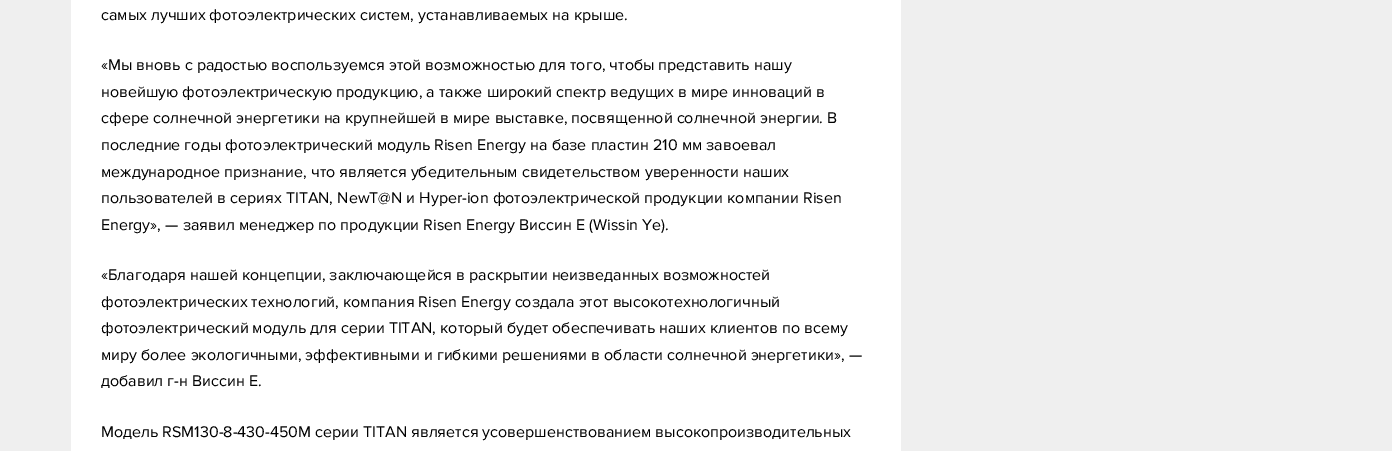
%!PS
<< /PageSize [1392 451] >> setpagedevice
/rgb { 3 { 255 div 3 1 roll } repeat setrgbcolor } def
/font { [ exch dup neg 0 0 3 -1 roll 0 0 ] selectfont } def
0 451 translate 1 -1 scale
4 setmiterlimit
239 239 239 rgb
0 0 1392 451 rectfill
255 255 255 rgb
71 0 830 451 rectfill
/ProximaNova-Regular 16 font
0 0 0 rgb
[
  [(самых лучших фотоэлектрических систем, устанавливаемых на крыше.) 101 20]
  [(«Мы вновь с радостью воспользуемся этой возможностью для того, чтобы представить нашу) 101 70]
  [(новейшую фотоэлектрическую продукцию, а также широкий спектр ведущих в мире инноваций в) 101 97]
  [(сфере солнечной энергетики на крупнейшей в мире выставке, посвященной солнечной энергии. В) 101 123]
  [(последние годы фотоэлектрический модуль Risen Energy на базе пластин 210 мм завоевал) 101 150]
  [(международное признание, что является убедительным свидетельством уверенности наших) 101 177]
  [(пользователей в сериях TITAN, NewT@N и Hyper-ion фотоэлектрической продукции компании Risen) 101 203]
  [(Energy», — заявил менеджер по продукции Risen Energy Виссин Е \(Wissin Ye\).) 101 230]
  [(«Благодаря нашей концепции, заключающейся в раскрытии неизведанных возможностей) 101 280]
  [(фотоэлектрических технологий, компания Risen Energy создала этот высокотехнологичный) 101 307]
  [(фотоэлектрический модуль для серии TITAN, который будет обеспечивать наших клиентов по всему) 101 333]
  [(миру более экологичными, эффективными и гибкими решениями в области солнечной энергетики», —) 101 360]
  [(добавил г-н Виссин Е.) 101 386]
  [(Модель RSM130-8-430-450M серии TITAN является усовершенствованием высокопроизводительных) 101 437]
] { aload pop moveto show } forall
showpage
